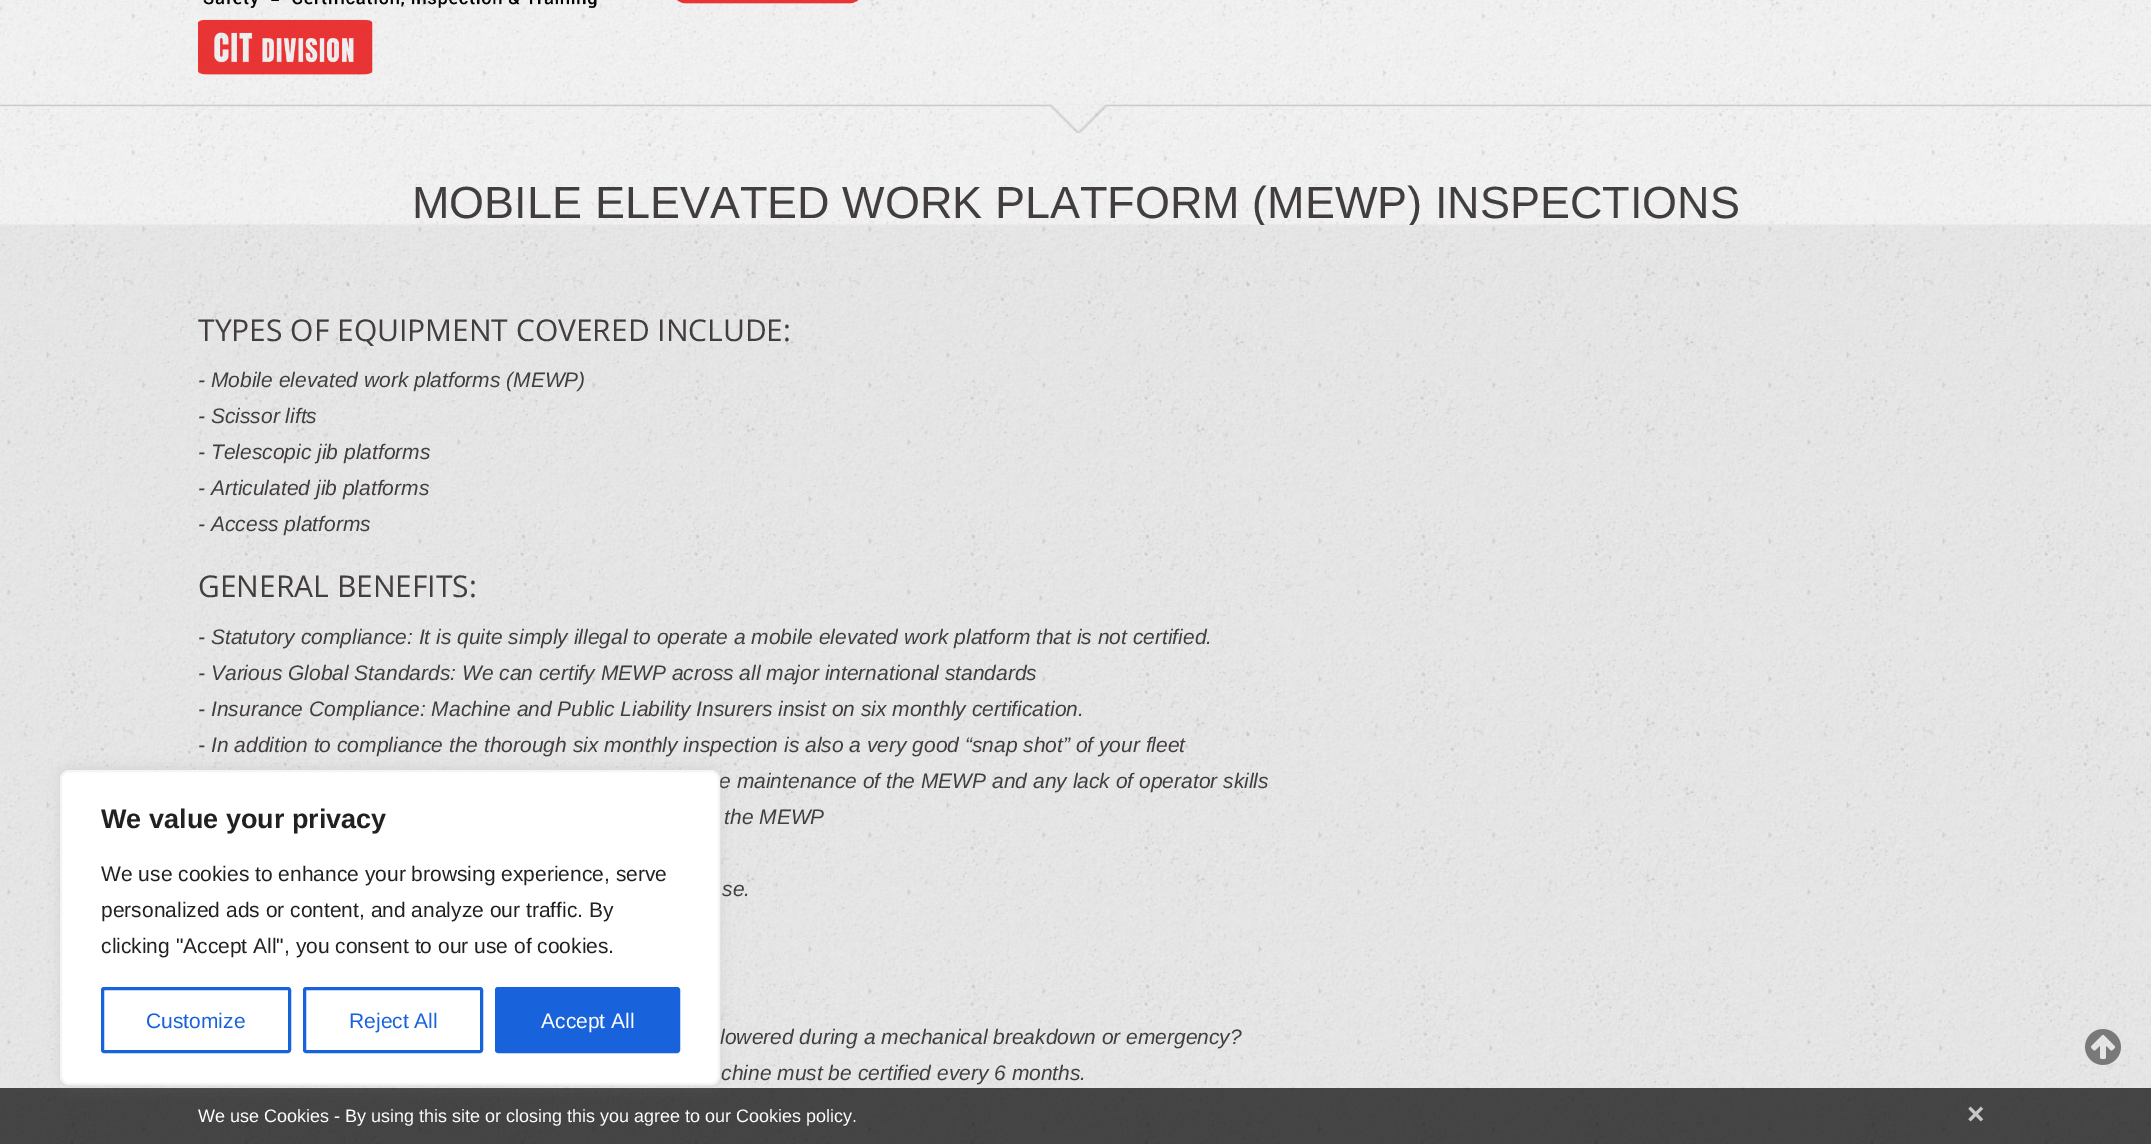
%!PS
<< /PageSize [2151 1144] /PageUsesTransparency true >> setpagedevice
/rgb { 3 { 255 div 3 1 roll } repeat setrgbcolor } def
/font { [ exch dup neg 0 0 3 -1 roll 0 0 ] selectfont } def
/alpha { dup .setfillconstantalpha .setstrokeconstantalpha } def
/roundrect { 5 dict begin { /r /h /w /y /x } { exch def } forall
  x r add y moveto x w add y 2 copy h add r arct x w add y h add x 1 index r arct
  x y h add x y r arct x y 2 copy exch w add exch r arct closepath end } def
/shadow { 12 dict begin { /a /b /q /h /w /y /x } { exch def } forall gsave /was 0 def
  9 -2 -9 { dup b mul 4 div /e exch def 1 sub .425 mul 2.718 exch exp 1 add a .99 .min exch div /now exch def
    1 1 now sub 1 was sub div sub alpha /was now def
    w h .min e 2 mul add 0 gt { x e sub y e sub w e 2 mul add h e 2 mul add
      q e add b .6 mul add w h .min 2 div e add .min 0 .max roundrect fill } if } for grestore end } def
/picture { 5 dict begin { /h /w /y /x /name } { exch def } forall
  gsave x y translate w h scale
  w h 8 [w 0 0 h 0 0] name (r) file false 3 colorimage grestore end } def
0 .pushpdf14devicefilter
0 1144 translate 1 -1 scale
4 setmiterlimit
255 255 255 rgb
0 0 2151 1144 rectfill
(img/1.rgb) 0 104 2151 1040 picture
(img/4.rgb) 0 104 2151 121 picture
(img/5.rgb) 0 104 2151 29 picture
(img/2.rgb) 0 0 2151 105 picture
(img/3.rgb) 198 0 661 75 picture
0.7 alpha
0 0 0 rgb
0 1088 2151 56 rectfill
1 alpha
172 171 171 rgb
60 768 660 315 9 7.5 0.3 shadow
(img/6.rgb) 2085 1029 36 36 picture
gsave
198 179 1755 46 rectclip
/LiberationSans-Regular 45 font
66 62 62 rgb
412 218 moveto (MOBILE ELEVATED WORK PLATFORM \(MEWP\) INSPECTIONS) show
grestore
/OpenSans-Regular 30 font
66 62 62 rgb
198 341 moveto (TYPES OF EQUIPMENT COVERED INCLUDE:) show
/LiberationSans-Italic 21 font
[
  [(- Mobile elevated work platforms \(MEWP\)) 198 387]
  [(- Scissor lifts) 198 423]
  [(- Telescopic jib platforms) 198 459]
  [(- Articulated jib platforms) 198 495]
  [(- Access platforms) 198 531]
] { aload pop moveto show } forall
/OpenSans-Regular 30 font
198 597 moveto (GENERAL BENEFITS:) show
/LiberationSans-Italic 21 font
[
  [(- Statutory compliance: It is quite simply illegal to operate a mobile elevated work platform that is not certified.) 198 644]
  [(- Various Global Standards: We can certify MEWP across all major international standards) 198 680]
  [(- Insurance Compliance: Machine and Public Liability Insurers insist on six monthly certification.) 198 716]
  [(- In addition to compliance the thorough six monthly inspection is also a very good “snap shot” of your fleet) 198 752]
  [(e maintenance of the MEWP and any lack of operator skills) 719 788]
  [(the MEWP) 724 824]
  [(se.) 722 896]
  [(lowered during a mechanical breakdown or emergency?) 720 1044]
  [(chine must be certified every 6 months.) 721 1080]
] { aload pop moveto show } forall
255 255 255 rgb
61 771 658 313 8 roundrect gsave fill grestore
244 244 244 rgb
2 setlinewidth
stroke
/LiberationSans-Bold 27 font
33 33 33 rgb
101 828 moveto (We value your privacy) show
/LiberationSans-Regular 21 font
[
  [(We use cookies to enhance your browsing experience, serve) 101 881]
  [(personalized ads or content, and analyze our traffic. By) 101 917]
  [(clicking "Accept All", you consent to our use of cookies.) 101 953]
] { aload pop moveto show } forall
24 99 220 rgb
3 setlinewidth
102.5 988.5 187 63 1.5 roundrect stroke
146 1028 moveto (Customize) show
304.5 988.5 177 63 1.5 roundrect stroke
349 1028 moveto (Reject All) show
496.5 988.5 182 63 1.5 roundrect gsave fill grestore
stroke
255 255 255 rgb
541 1028 moveto (Accept All) show
/LiberationSans-Regular 18 font
198 1122 moveto (We use Cookies - By using this site or closing this you agree to our Cookies policy.) show
/LiberationSans-Bold 30 font
199 199 199 rgb
1967 1124 moveto (×) show
.poppdf14devicefilter showpage
